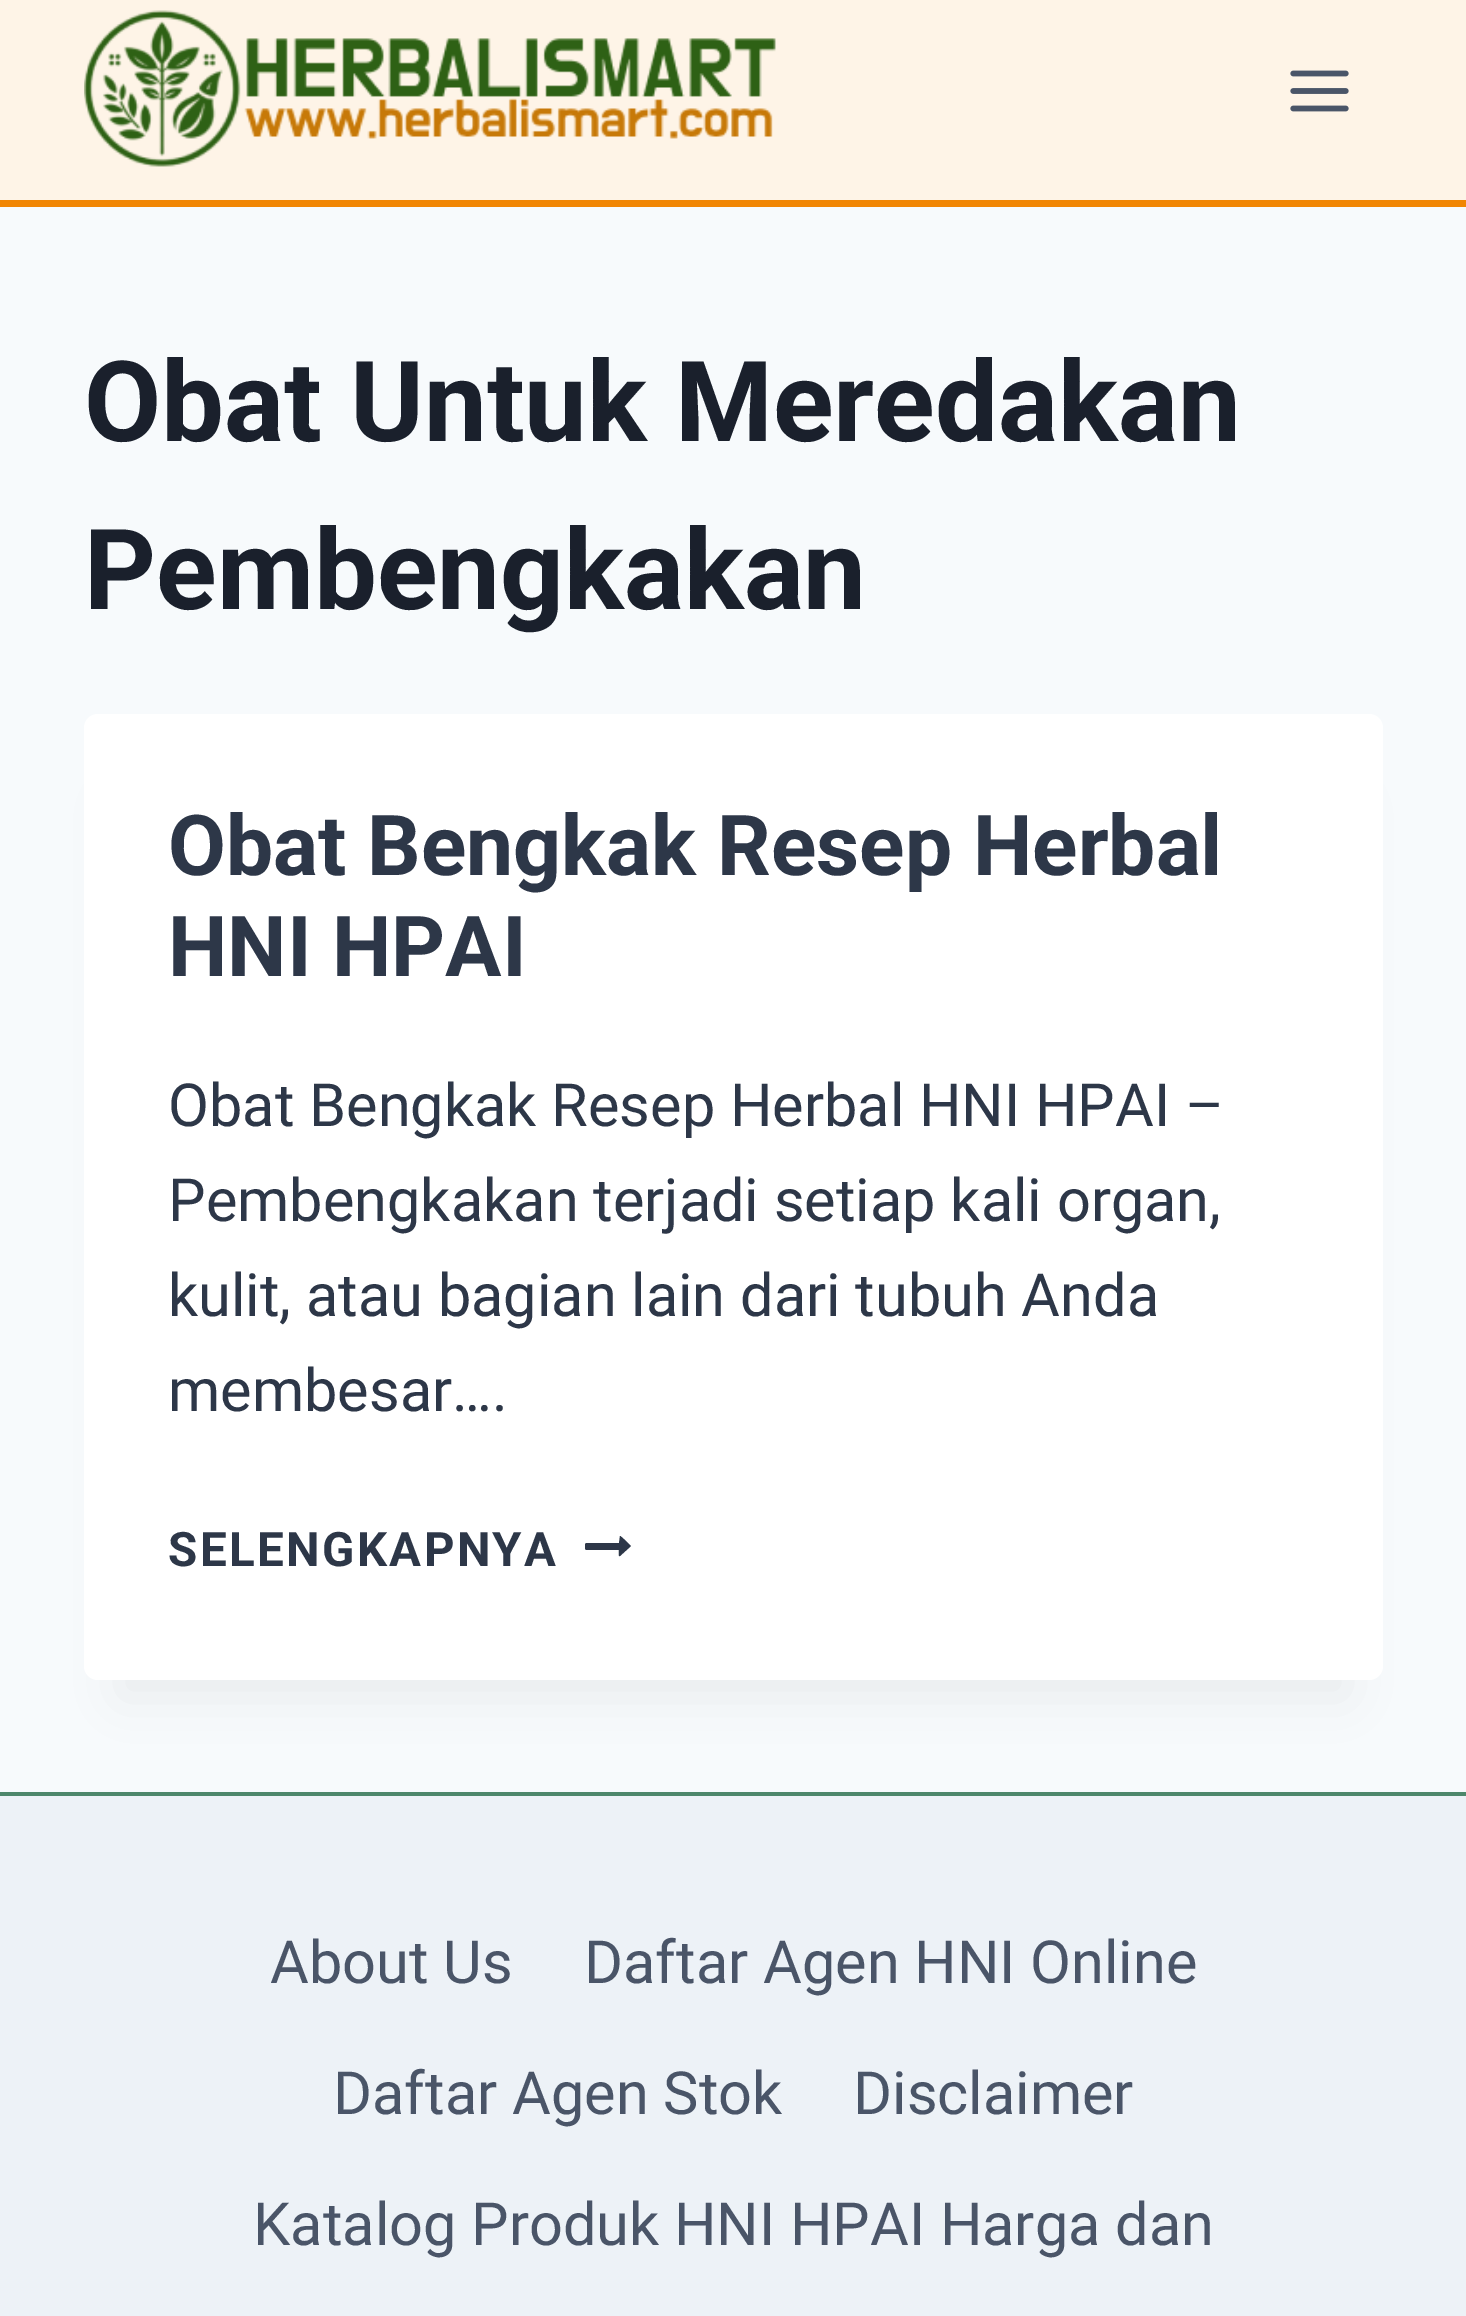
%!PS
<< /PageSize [1466 2316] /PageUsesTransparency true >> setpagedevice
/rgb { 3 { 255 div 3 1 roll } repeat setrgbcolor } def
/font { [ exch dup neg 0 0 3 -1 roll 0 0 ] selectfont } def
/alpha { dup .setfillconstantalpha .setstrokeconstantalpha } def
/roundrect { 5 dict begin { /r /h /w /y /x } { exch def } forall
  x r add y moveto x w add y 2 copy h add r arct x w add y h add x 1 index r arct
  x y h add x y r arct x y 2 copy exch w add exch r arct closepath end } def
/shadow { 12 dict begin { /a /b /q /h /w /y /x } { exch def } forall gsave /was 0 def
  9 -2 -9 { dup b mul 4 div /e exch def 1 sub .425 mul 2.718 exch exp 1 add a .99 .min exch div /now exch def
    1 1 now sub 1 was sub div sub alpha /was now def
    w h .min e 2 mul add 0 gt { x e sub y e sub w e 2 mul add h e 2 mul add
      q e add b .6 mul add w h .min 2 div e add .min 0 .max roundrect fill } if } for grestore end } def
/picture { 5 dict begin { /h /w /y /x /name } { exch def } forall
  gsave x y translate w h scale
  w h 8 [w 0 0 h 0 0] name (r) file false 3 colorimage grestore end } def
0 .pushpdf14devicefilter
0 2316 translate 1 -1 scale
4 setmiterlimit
247 250 252 rgb
0 0 1466 2316 rectfill
254 244 231 rgb
0 0 1466 200 rectfill
241 134 3 rgb
0 200 1466 7 rectfill
(img/1.rgb) 84 10 692 157 picture
(img/2.rgb) 1290 70 59 42 picture
0 0 0 rgb
119 802 1229 896 0 26 0.05 shadow
255 255 255 rgb
84 714 1299 966 14 roundrect fill
45 55 72 rgb
631 1546 moveto 620 1556 lineto 618 1557 619 1551 619 1550 curveto 586 1550 lineto 585 1549 lineto 585 1544 lineto 586 1543 lineto 619 1543 lineto 620 1536 lineto 621 1536 631 1546 631 1546 curveto closepath fill
237 242 247 rgb
0 1796 1466 520 rectfill
77 135 107 rgb
0 1792 1466 4 rectfill
/Roboto-Bold 112 font
26 32 44 rgb
84 441 moveto (Obat Untuk Meredakan) show
84 609 moveto (Pembengkakan) show
/Roboto-Bold 84 font
45 55 72 rgb
168 875 moveto (Obat Bengkak Resep Herbal) show
168 976 moveto (HNI HPAI) show
/Roboto-Regular 59.5 font
[
  [(Obat Bengkak Resep Herbal HNI HPAI –) 168 1126]
  [(Pembengkakan terjadi setiap kali organ,) 168 1221]
  [(kulit, atau bagian lain dari tubuh Anda) 168 1316]
  [(membesar….) 168 1411]
] { aload pop moveto show } forall
/Roboto-Bold 47.5 font
168 1566 moveto 2.4 0 (SELENGKAPNYA) ashow
/Roboto-Regular 59.5 font
74 85 104 rgb
[
  [(About Us) 270 1983]
  [(Daftar Agen HNI Online) 584 1983]
  [(Daftar Agen Stok) 333 2114]
  [(Disclaimer) 853 2114]
  [(Katalog Produk HNI HPAI Harga dan) 253 2245]
] { aload pop moveto show } forall
.poppdf14devicefilter showpage
